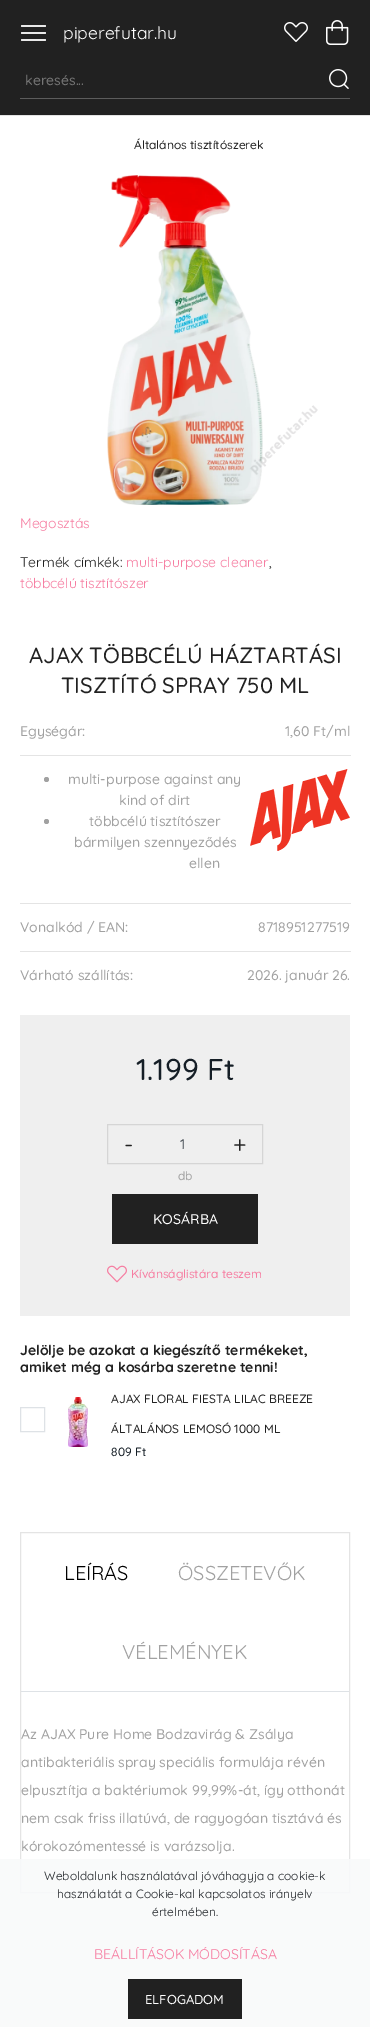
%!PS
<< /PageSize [370 2027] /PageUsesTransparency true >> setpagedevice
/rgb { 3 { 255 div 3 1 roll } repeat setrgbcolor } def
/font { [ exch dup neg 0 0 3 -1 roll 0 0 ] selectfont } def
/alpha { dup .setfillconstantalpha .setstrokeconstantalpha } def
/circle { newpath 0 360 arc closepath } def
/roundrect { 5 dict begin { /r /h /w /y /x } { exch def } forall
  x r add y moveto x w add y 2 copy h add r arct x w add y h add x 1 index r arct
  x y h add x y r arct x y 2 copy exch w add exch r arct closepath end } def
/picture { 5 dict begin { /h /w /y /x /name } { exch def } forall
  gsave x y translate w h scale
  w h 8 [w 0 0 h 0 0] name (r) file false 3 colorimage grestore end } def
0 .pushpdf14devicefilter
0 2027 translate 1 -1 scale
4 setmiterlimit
255 255 255 rgb
0 0 370 2027 rectfill
33 33 33 rgb
0 0 370 115 rectfill
233 233 233 rgb
21 25 25 2 1 roundrect fill
21 32 25 2 1 roundrect fill
21 39 25 2 1 roundrect fill
(img/1.rgb) 284 22 24 20 picture
(img/2.rgb) 326 20 23 25 picture
92 92 92 rgb
20 98 330 1 rectfill
(img/3.rgb) 329 69 20 20 picture
227 227 227 rgb
0 115 370 1 rectfill
(img/4.rgb) 107 175 211 330 picture
228 228 228 rgb
20 755 331 1 rectfill
161 161 161 rgb
46.5 779.5 2.5 circle fill
(img/5.rgb) 250 769 100 82 picture
46.5 821.5 2.5 circle fill
[
  [20 903 331 1 228 228 228]
  [20 951 331 1 228 228 228]
  [20 1015 330 301 239 239 239]
] { aload pop rgb rectfill } forall
213 213 213 rgb
107.5 1124.5 155 39 rectstroke
33 33 33 rgb
112 1194 146 50 rectfill
(img/6.rgb) 107 1265 20 18 picture
222 226 230 rgb
20.5 1407.5 24 24 rectstroke
(img/7.rgb) 68 1397 20 50 picture
228 228 228 rgb
20.5 1532.5 329 360 rectstroke
[
  [21 1691 328 1 222 226 230]
] { aload pop rgb rectfill } forall
0.9 alpha
[
  [0 1859 370 168 248 249 250]
] { aload pop rgb rectfill } forall
1 alpha
[
  [128 1979 114 40 33 33 33]
] { aload pop rgb rectfill } forall
/Quicksand-Regular 17.5 font
255 255 255 rgb
63 39 moveto (piperefutar.hu) show
/Quicksand-Medium 14 font
118 118 118 rgb
25 85 moveto (keresés...) show
/Quicksand-Medium 12 font
33 33 33 rgb
134 149 moveto (Általános tisztítószerek) show
/Quicksand-Regular 14 font
246 125 161 rgb
20 528 moveto (Megosztás) show
33 33 33 rgb
20 567 moveto (Termék címkék:) show
246 125 161 rgb
126 567 moveto (multi-purpose cleaner) show
33 33 33 rgb
269 567 moveto (,) show
246 125 161 rgb
20 588 moveto (többcélú tisztítószer) show
/Quicksand-Medium 22 font
33 33 33 rgb
29 663 moveto (AJAX TÖBBCÉLÚ HÁZTARTÁSI) show
61 693 moveto (TISZTÍTÓ SPRAY 750 ML) show
/Quicksand-Medium 14 font
161 161 161 rgb
[
  [(Egységár:) 20 736]
  [(1,60 Ft/ml) 285 736]
  [(multi-purpose against any) 68 784]
  [(kind of dirt) 119 805]
  [(többcélú tisztítószer) 89 826]
  [(bármilyen szennyeződés) 74 847]
  [(ellen) 189 868]
  [(Vonalkód / EAN:) 20 932]
  [(8718951277519) 258 932]
  [(Várható szállítás:) 20 980]
  [(2026. január 26.) 247 980]
] { aload pop moveto show } forall
/Quicksand-Medium 30 font
21 30 38 rgb
136 1080 moveto (1.199 Ft) show
/Quicksand-Regular 24 font
33 33 33 rgb
124 1153 moveto (-) show
/Quicksand-Medium 14 font
73 80 87 rgb
180 1149 moveto (1) show
/Quicksand-Regular 24 font
33 33 33 rgb
233 1153 moveto (+) show
/Quicksand-Medium 12 font
161 161 161 rgb
178 1180 moveto (db) show
/Quicksand-Medium 14 font
255 255 255 rgb
153 1224 moveto (KOSÁRBA) show
/Quicksand-Medium 12 font
246 125 161 rgb
131 1278 moveto (Kívánságlistára teszem) show
/Quicksand-Bold 14 font
33 33 33 rgb
20 1355 moveto (Jelölje be azokat a kiegészítő termékeket,) show
20 1372 moveto (amiket még a kosárba szeretne tenni!) show
/Quicksand-Medium 12 font
111 1403 moveto (AJAX FLORAL FIESTA LILAC BREEZE) show
111 1433 moveto (ÁLTALÁNOS LEMOSÓ 1000 ML) show
21 30 38 rgb
111 1456 moveto (809 Ft) show
/Quicksand-Regular 20 font
0 0 0 rgb
64 1580 moveto (LEÍRÁS) show
161 161 161 rgb
178 1580 moveto (ÖSSZETEVŐK) show
122 1659 moveto (VÉLEMÉNYEK) show
/Quicksand-Medium 14 font
[
  [(Az AJAX Pure Home Bodzavirág & Zsálya) 21 1739]
  [(antibakteriális spray speciális formulája révén) 21 1767]
  [(elpusztítja a baktériumok 99,99%-át, így otthonát) 21 1795]
  [(nem csak friss illatúvá, de ragyogóan tisztává és) 21 1823]
  [(kórokozómentessé is varázsolja.) 21 1851]
] { aload pop moveto show } forall
/Quicksand-Regular 12 font
33 37 41 rgb
[
  [(Weboldalunk használatával jóváhagyja a cookie-k) 44 1880]
  [(használatát a Cookie-kal kapcsolatos irányelv) 57 1898]
  [(értelmében.) 152 1916]
] { aload pop moveto show } forall
/Quicksand-Regular 14 font
246 125 161 rgb
94 1959 moveto (BEÁLLÍTÁSOK MÓDOSÍTÁSA) show
/Quicksand-Medium 13 font
255 255 255 rgb
145 2004 moveto (ELFOGADOM) show
.poppdf14devicefilter showpage
